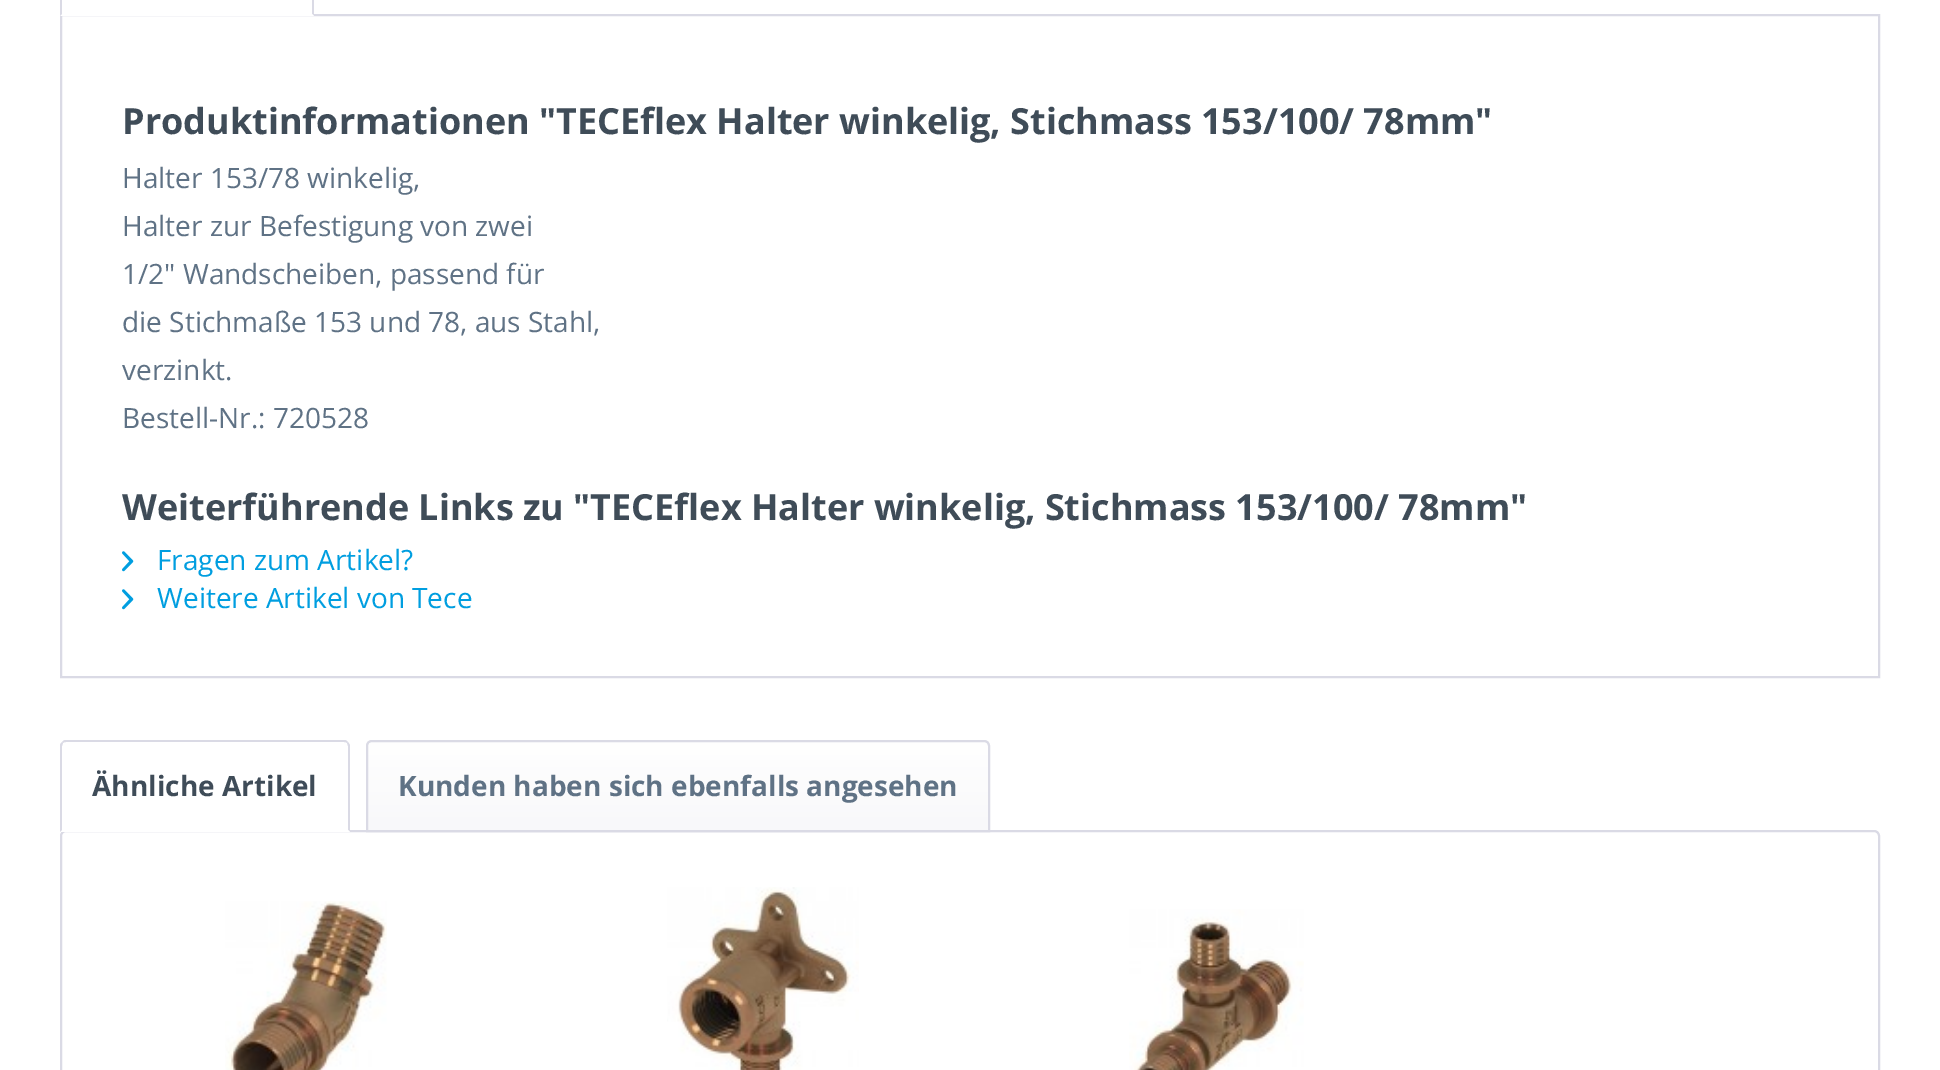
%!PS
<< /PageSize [1940 1070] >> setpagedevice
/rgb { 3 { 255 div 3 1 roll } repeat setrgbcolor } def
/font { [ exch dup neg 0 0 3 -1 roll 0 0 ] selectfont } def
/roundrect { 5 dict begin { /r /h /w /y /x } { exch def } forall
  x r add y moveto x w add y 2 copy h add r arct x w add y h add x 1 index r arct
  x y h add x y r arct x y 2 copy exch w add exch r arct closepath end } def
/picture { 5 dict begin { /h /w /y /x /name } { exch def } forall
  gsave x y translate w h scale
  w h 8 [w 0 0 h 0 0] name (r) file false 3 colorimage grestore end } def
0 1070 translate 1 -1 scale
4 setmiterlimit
255 255 255 rgb
0 0 1940 1070 rectfill
218 218 229 rgb
2 setlinewidth
61 15 1818 662 rectstroke
255 255 255 rgb
60 14 254 2 rectfill
218 218 229 rgb
314 16 moveto 314 -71 lineto 312 -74 lineto 311 -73 lineto 312 -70 lineto 312 14 lineto closepath fill
255 255 255 rgb
314 16 moveto 312 14 lineto 62 14 lineto 60 16 lineto closepath fill
218 218 229 rgb
60 16 moveto 62 14 lineto 62 -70 lineto 63 -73 lineto 62 -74 lineto 61 -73 60 -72 60 -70 curveto closepath fill
(img/1.rgb) 122 551 12 21 picture
(img/1.rgb) 122 589 12 21 picture
61 831 1818 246 5 roundrect stroke
255 255 255 rgb
66 740 moveto 344 740 lineto 347.5 740 350 742.5 350 746 curveto 350 832 lineto 60 832 lineto 60 746 lineto 60 742.5 62.5 740 66 740 curveto closepath fill
218 218 229 rgb
66 740 moveto 64 740 63 741 62 742 curveto 63 743 lineto 64 742 65 742 66 742 curveto 344 742 lineto 345 742 346 742 347 743 curveto 348 742 lineto 347 741 346 740 344 740 curveto closepath fill
350 832 moveto 350 745 lineto 348 742 lineto 347 743 lineto 348 746 lineto 348 830 lineto closepath fill
255 255 255 rgb
350 832 moveto 348 830 lineto 62 830 lineto 60 832 lineto closepath fill
218 218 229 rgb
60 832 moveto 62 830 lineto 62 746 lineto 63 743 lineto 62 742 lineto 61 743 60 744 60 746 curveto closepath fill
gsave 372 742 moveto 984 742 lineto 986 742 988 744 988 746 curveto 988 830 lineto 368 830 lineto 368 746 lineto 368 744 370 742 372 742 curveto closepath clip newpath
<< /ShadingType 2 /ColorSpace /DeviceRGB /Coords [678 742 678 830] /Extend [true true] /Function << /FunctionType 2 /Domain [0 1] /C0 [1 1 1] /C1 [0.973 0.973 0.98] /N 1 >> >> shfill grestore
372 741 moveto 984 741 lineto 987 741 989 743 989 746 curveto 989 831 lineto 367 831 lineto 367 746 lineto 367 743 369 741 372 741 curveto closepath stroke
(img/2.rgb) 225 901 162 169 picture
(img/3.rgb) 667 887 192 183 picture
(img/4.rgb) 1129 909 175 161 picture
/OpenSans-Bold 36 font
63 76 88 rgb
122 134 moveto (Produktinformationen "TECEflex Halter winkelig, Stichmass 153/100/ 78mm") show
/OpenSans-Regular 28 font
95 114 133 rgb
[
  [(Halter 153/78 winkelig,) 122 188]
  [(Halter zur Befestigung von zwei) 122 236]
  [(1/2" Wandscheiben, passend für) 122 284]
  [(die Stichmaße 153 und 78, aus Stahl,) 122 332]
  [(verzinkt.) 122 380]
  [(Bestell-Nr.: 720528) 122 428]
] { aload pop moveto show } forall
/OpenSans-Bold 36 font
63 76 88 rgb
122 520 moveto (Weiterführende Links zu "TECEflex Halter winkelig, Stichmass 153/100/ 78mm") show
/OpenSans-Regular 28 font
0 158 224 rgb
157 570 moveto (Fragen zum Artikel?) show
157 608 moveto (Weitere Artikel von Tece) show
/OpenSans-Bold 28 font
63 76 88 rgb
92 796 moveto (Ähnliche Artikel) show
95 114 133 rgb
398 796 moveto (Kunden haben sich ebenfalls angesehen) show
showpage
